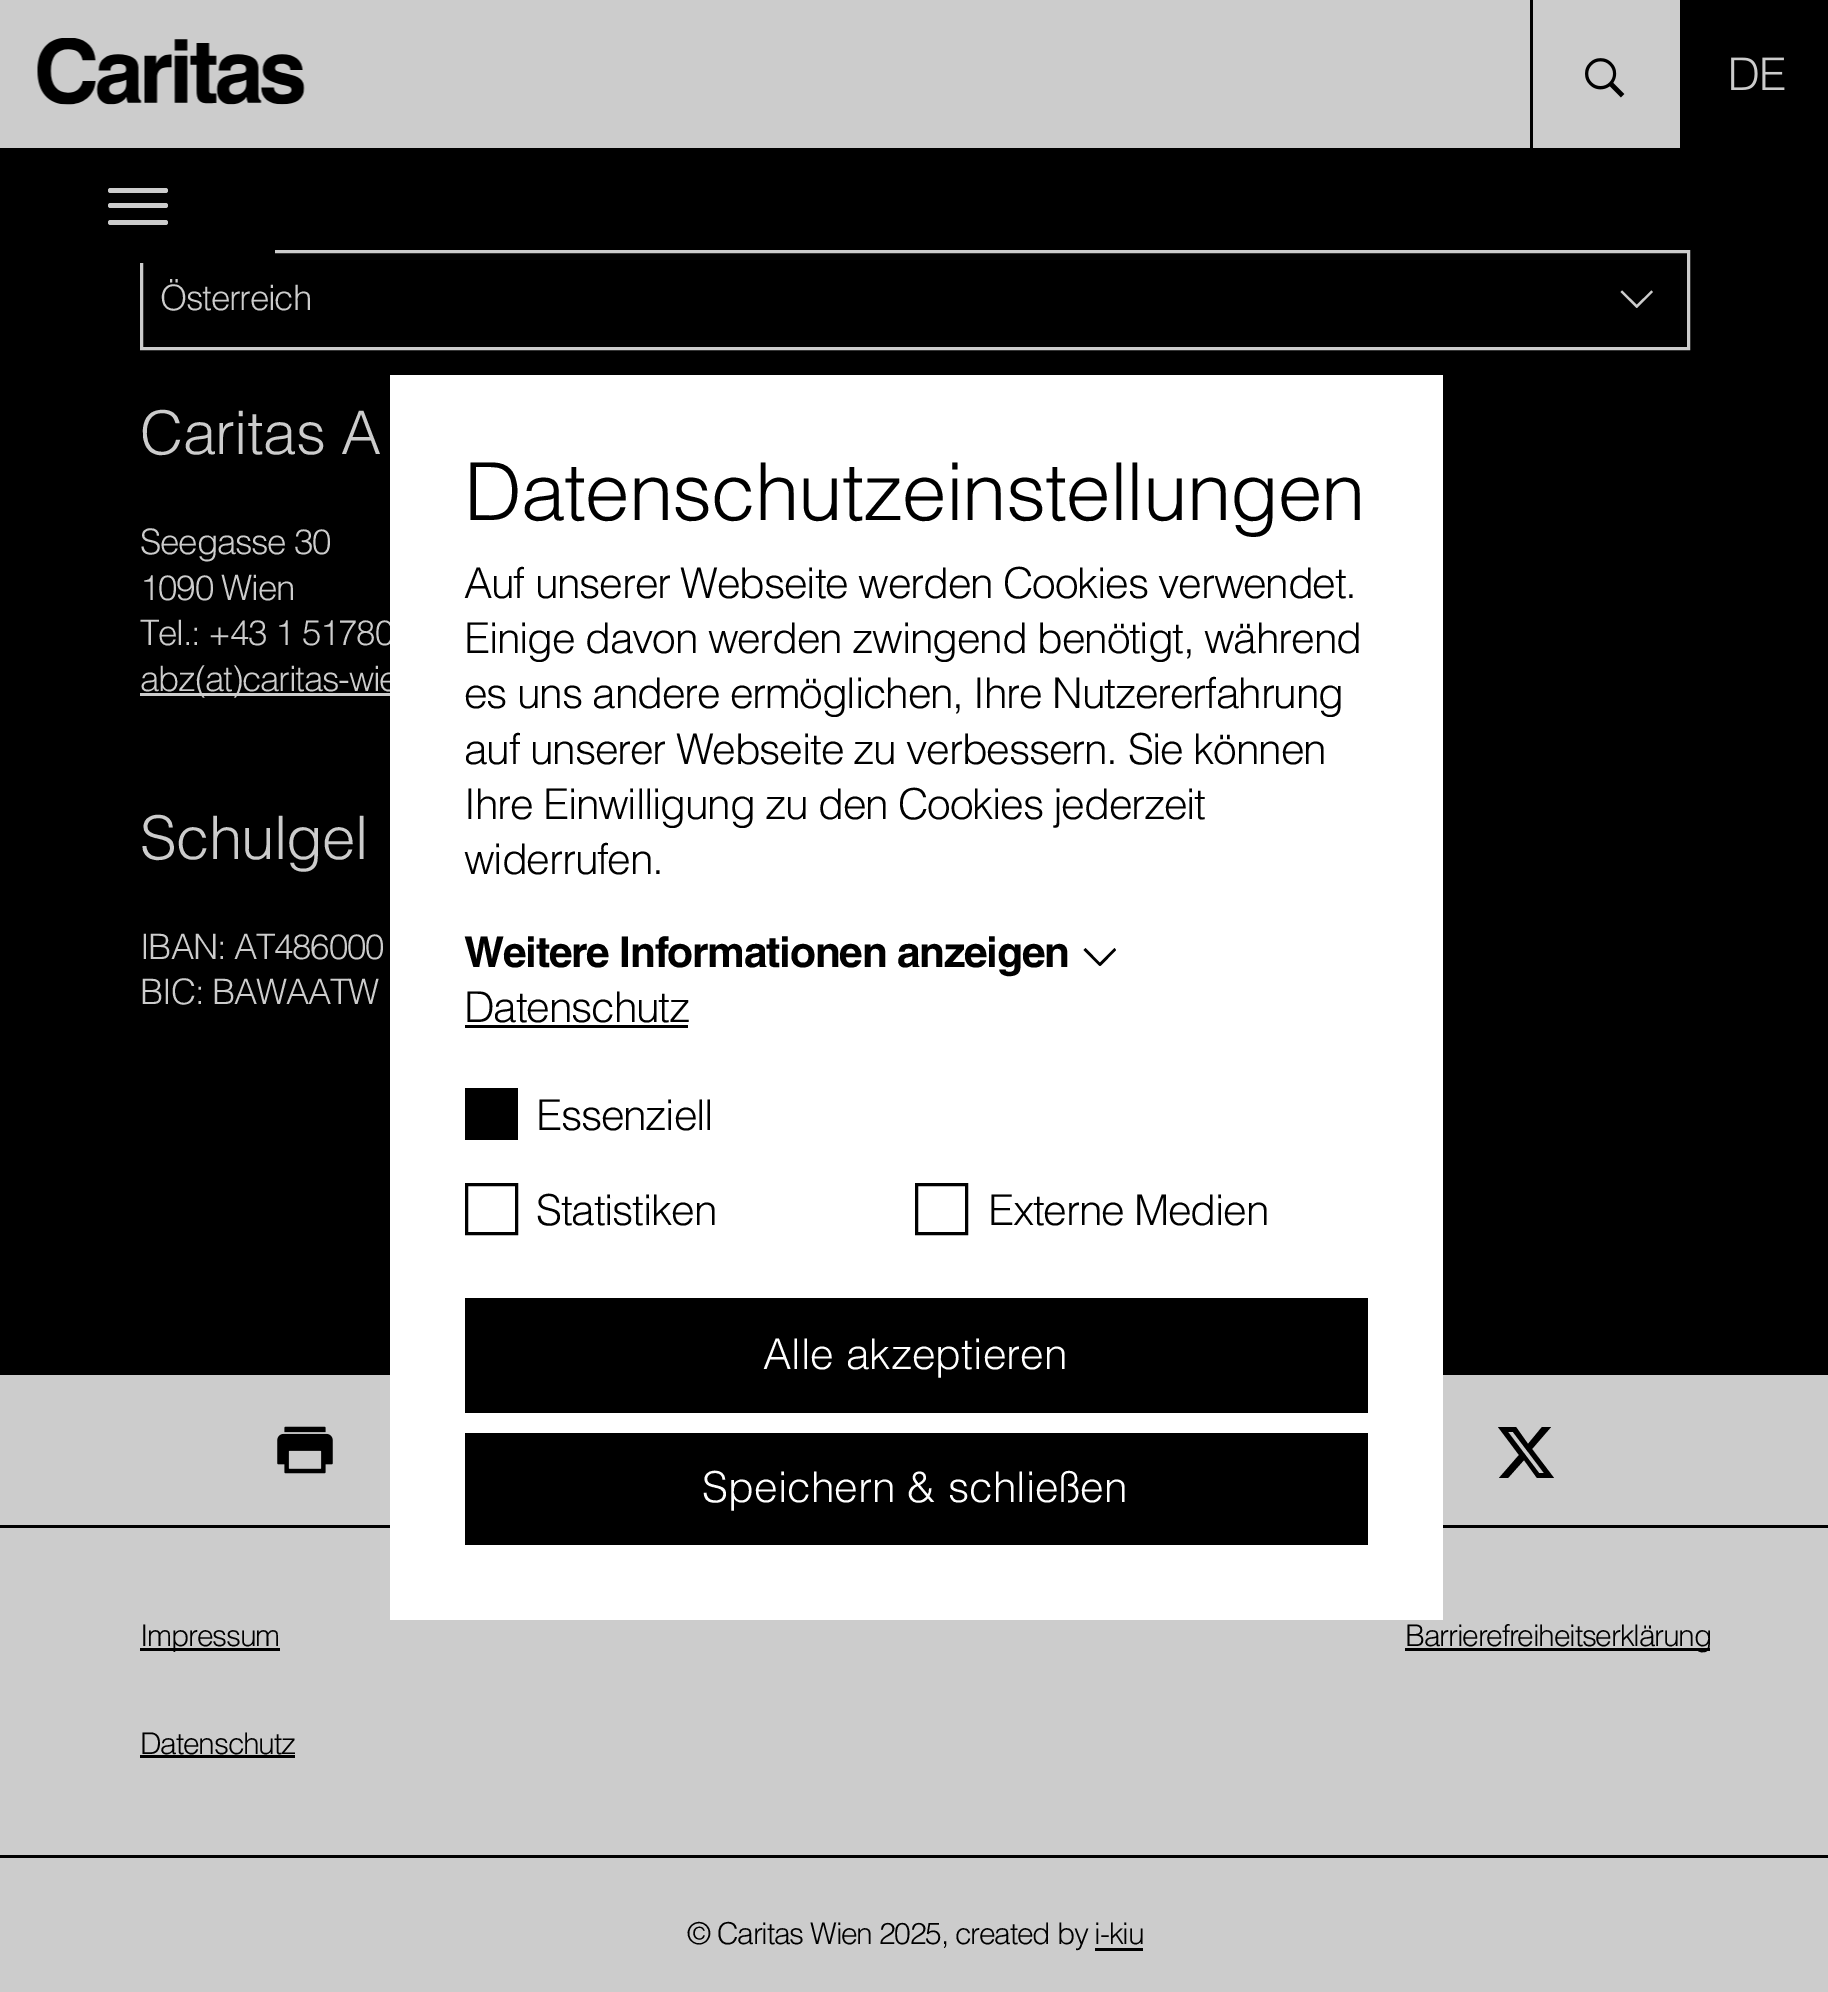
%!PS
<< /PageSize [1828 1992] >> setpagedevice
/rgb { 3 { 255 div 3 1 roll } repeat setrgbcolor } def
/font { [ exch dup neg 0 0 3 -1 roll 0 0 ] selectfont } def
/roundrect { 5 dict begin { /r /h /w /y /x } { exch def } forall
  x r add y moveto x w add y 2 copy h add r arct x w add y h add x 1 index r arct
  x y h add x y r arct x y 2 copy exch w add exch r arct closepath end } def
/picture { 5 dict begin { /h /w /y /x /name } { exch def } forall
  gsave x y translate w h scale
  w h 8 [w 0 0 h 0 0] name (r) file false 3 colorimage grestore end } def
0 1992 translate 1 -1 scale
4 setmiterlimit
204 204 204 rgb
0 0 1828 1992 rectfill
(img/1.rgb) 37 38 268 67 picture
0 0 0 rgb
1530 0 3 148 rectfill
(img/2.rgb) 1585 58 40 40 picture
1680 0 148 148 rectfill
(img/3.rgb) 1731 57 54 33 picture
0 148 1828 1227 rectfill
204 204 204 rgb
3 setlinewidth
141.5 251.5 1547 97 rectstroke
0 0 0 rgb
140 250 135 13 rectfill
204 204 204 rgb
108 188 60 5 2.5 roundrect fill
108 203 60 5 2.5 roundrect fill
108 220 60 5 2.5 roundrect fill
1622 290.5 moveto 1638 306 lineto 1636.5 308 lineto 1620.5 292 lineto closepath fill
1635.5 306 moveto 1651.5 290.5 lineto 1653 292 lineto 1637 308 lineto closepath fill
140 693 250 3 rectfill
0 0 0 rgb
0 1525 1828 3 rectfill
(img/4.rgb) 277 1426 56 48 picture
1542 1427 moveto 1551 1427 lineto 1532 1449 lineto 1554 1478 lineto 1537 1478 lineto 1524 1460 lineto 1508 1478 lineto 1499 1478 lineto 1519 1455 lineto 1498 1427 lineto 1516 1427 lineto 1528 1444 lineto closepath 1539 1473 moveto 1544 1473 lineto 1513 1432 lineto 1508 1432 lineto closepath fill
[
  [140 1648 140 3 0 0 0]
  [1405 1648 305 3 0 0 0]
  [140 1755 155 3 0 0 0]
  [0 1855 1828 3 0 0 0]
  [1095 1948 48 3 0 0 0]
] { aload pop rgb rectfill } forall
/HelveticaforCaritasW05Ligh-Light 35 font
204 204 204 rgb
160 310 moveto -1.25 0 (Österreich) ashow
/HelveticaforCaritasW05Ligh-Light 60 font
140 454 moveto -0.75 0 (Caritas A) ashow
/HelveticaforCaritasW05Ligh-Light 35 font
140 554 moveto -1.25 0 (Seegasse 30) ashow
140 600 moveto -1.25 0 (1090 Wien) ashow
140 645 moveto -1.25 0 (Tel.: +43 1 51780) ashow
140 691 moveto -1.25 0 (abz\(at\)caritas-wie) ashow
/HelveticaforCaritasW05Ligh-Light 60 font
140 859 moveto -0.75 0 (Schulgel) ashow
/HelveticaforCaritasW05Ligh-Light 35 font
140 959 moveto -1.25 0 (IBAN: AT486000) ashow
140 1004 moveto -1.25 0 (BIC: BAWAATW) ashow
/HelveticaforCaritasW05Ligh-Light 30 font
0 0 0 rgb
140 1646 moveto -1.25 0 (Impressum) ashow
1405 1646 moveto -1.25 0 (Barrierefreiheitserklärung) ashow
140 1754 moveto -1.25 0 (Datenschutz) ashow
687 1944 moveto -1.25 0 (© Caritas Wien 2025, created by i-kiu) ashow
255 255 255 rgb
390 375 1053 1245 rectfill
/HelveticaforCaritasW05Ligh-Light 80 font
0 0 0 rgb
464 520 moveto -1 0 (Datenschutzeinstellungen) ashow
/HelveticaforCaritasW05Ligh-Light 42.5 font
464 598 moveto -1.25 0 (Auf unserer Webseite werden Cookies verwendet.) ashow
464 653 moveto -1.25 0 (Einige davon werden zwingend benötigt, während) ashow
464 708 moveto -1.25 0 (es uns andere ermöglichen, Ihre Nutzererfahrung) ashow
464 764 moveto -1.25 0 (auf unserer Webseite zu verbessern. Sie können) ashow
464 819 moveto -1.25 0 (Ihre Einwilligung zu den Cookies jederzeit) ashow
464 874 moveto -1.25 0 (widerrufen.) ashow
/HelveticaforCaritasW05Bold-Bold 42.5 font
464 967 moveto -1.25 0 (Weitere Informationen anzeigen) ashow
1085.5 948 moveto 1101 964 lineto 1099.5 966 lineto 1083.5 950 lineto closepath fill
1098.5 964 moveto 1114.5 948 lineto 1116 950 lineto 1100.5 966 lineto closepath fill
/HelveticaforCaritasW05Ligh-Light 42.5 font
464 1022 moveto -1.25 0 (Datenschutz) ashow
465 1025 223 3 rectfill
465 1088 53 52 rectfill
536 1130 moveto -1.25 0 (Essenziell) ashow
466.5 1184.5 50 49 rectstroke
536 1225 moveto -1.25 0 (Statistiken) ashow
916.5 1184.5 50 49 rectstroke
988 1225 moveto -1.25 0 (Externe Medien) ashow
465 1298 903 115 rectfill
255 255 255 rgb
763 1369 moveto (Alle akzeptieren) show
0 0 0 rgb
465 1433 903 112 rectfill
255 255 255 rgb
702 1502 moveto (Speichern & schließen) show
showpage
